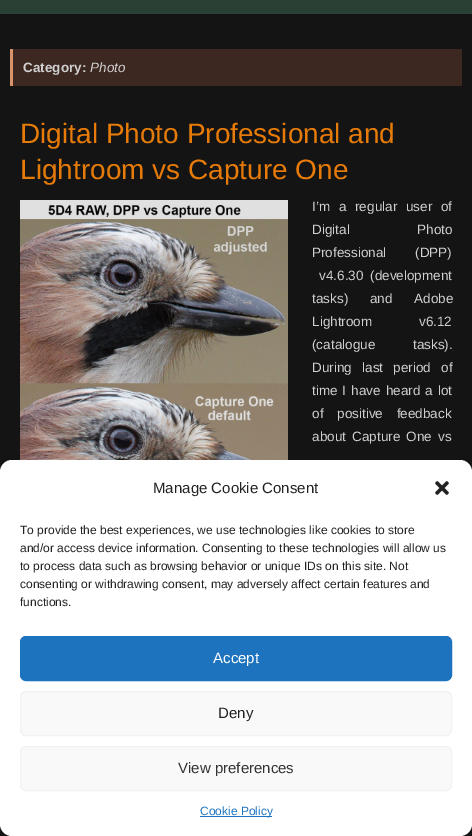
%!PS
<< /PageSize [472 836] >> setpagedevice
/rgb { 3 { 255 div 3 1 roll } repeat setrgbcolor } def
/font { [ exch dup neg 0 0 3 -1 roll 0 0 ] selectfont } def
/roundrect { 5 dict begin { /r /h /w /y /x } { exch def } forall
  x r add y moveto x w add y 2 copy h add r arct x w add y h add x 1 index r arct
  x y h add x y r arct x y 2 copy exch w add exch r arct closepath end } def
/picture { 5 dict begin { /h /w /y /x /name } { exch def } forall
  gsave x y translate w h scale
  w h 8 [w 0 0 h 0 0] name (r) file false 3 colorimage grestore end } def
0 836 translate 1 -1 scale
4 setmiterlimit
20 20 20 rgb
0 0 472 836 rectfill
[
  [0 0 472 14 42 64 53]
  [13 49 449 37 60 40 32]
  [10 49 3 37 216 147 107]
] { aload pop rgb rectfill } forall
(img/1.rgb) 20 200 268 260 picture
255 255 255 rgb
0 460 472 376 12 roundrect fill
(img/2.rgb) 435 481 14 14 picture
30 115 190 rgb
20.5 636.5 431 44 5.5 roundrect gsave fill grestore
stroke
249 249 249 rgb
20.5 691.5 431 44 5.5 roundrect gsave fill grestore
242 242 242 rgb
stroke
249 249 249 rgb
20.5 746.5 431 44 5.5 roundrect gsave fill grestore
242 242 242 rgb
stroke
30 115 190 rgb
200 816 72 1 rectfill
/LiberationSans-Bold 13.5 font
208 208 208 rgb
23 72 moveto (Category:) show
/LiberationSans-Italic 13.5 font
90 72 moveto (Photo) show
/LiberationSans-Regular 28 font
230 123 9 rgb
20 143 moveto (Digital Photo Professional and) show
20 179 moveto (Lightroom vs Capture One) show
/LiberationSans-Regular 13.5 font
208 208 208 rgb
312 211 moveto 5 0 32 (I’m a regular user of) widthshow
312 234 moveto 64 0 32 (Digital Photo) widthshow
312 257 moveto 25 0 32 (Professional \(DPP\)) widthshow
319 280 moveto 3 0 32 (v4.6.30 \(development) widthshow
312 303 moveto 18 0 32 (tasks\) and Adobe) widthshow
312 326 moveto 43 0 32 (Lightroom v6.12) widthshow
312 349 moveto 34 0 32 (\(catalogue tasks\).) widthshow
312 372 moveto 6.5 0 32 (During last period of) widthshow
312 395 moveto 1.25 0 32 (time I have heard a lot) widthshow
312 418 moveto 10 0 32 (of positive feedback) widthshow
312 441 moveto 2.5 0 32 (about Capture One vs) widthshow
/LiberationSans-Regular 15 font
34 34 34 rgb
153 493 moveto (Manage Cookie Consent) show
/LiberationSans-Regular 12 font
[
  [(To provide the best experiences, we use technologies like cookies to store) 20 534]
  [(and/or access device information. Consenting to these technologies will allow us) 20 552]
  [(to process data such as browsing behavior or unique IDs on this site. Not) 20 570]
  [(consenting or withdrawing consent, may adversely affect certain features and) 20 588]
  [(functions.) 20 606]
] { aload pop moveto show } forall
/LiberationSans-Regular 15 font
255 255 255 rgb
213 663 moveto (Accept) show
34 34 34 rgb
218 718 moveto (Deny) show
51 51 51 rgb
178 773 moveto (View preferences) show
/LiberationSans-Regular 12 font
30 115 190 rgb
200 815 moveto (Cookie Policy) show
showpage
